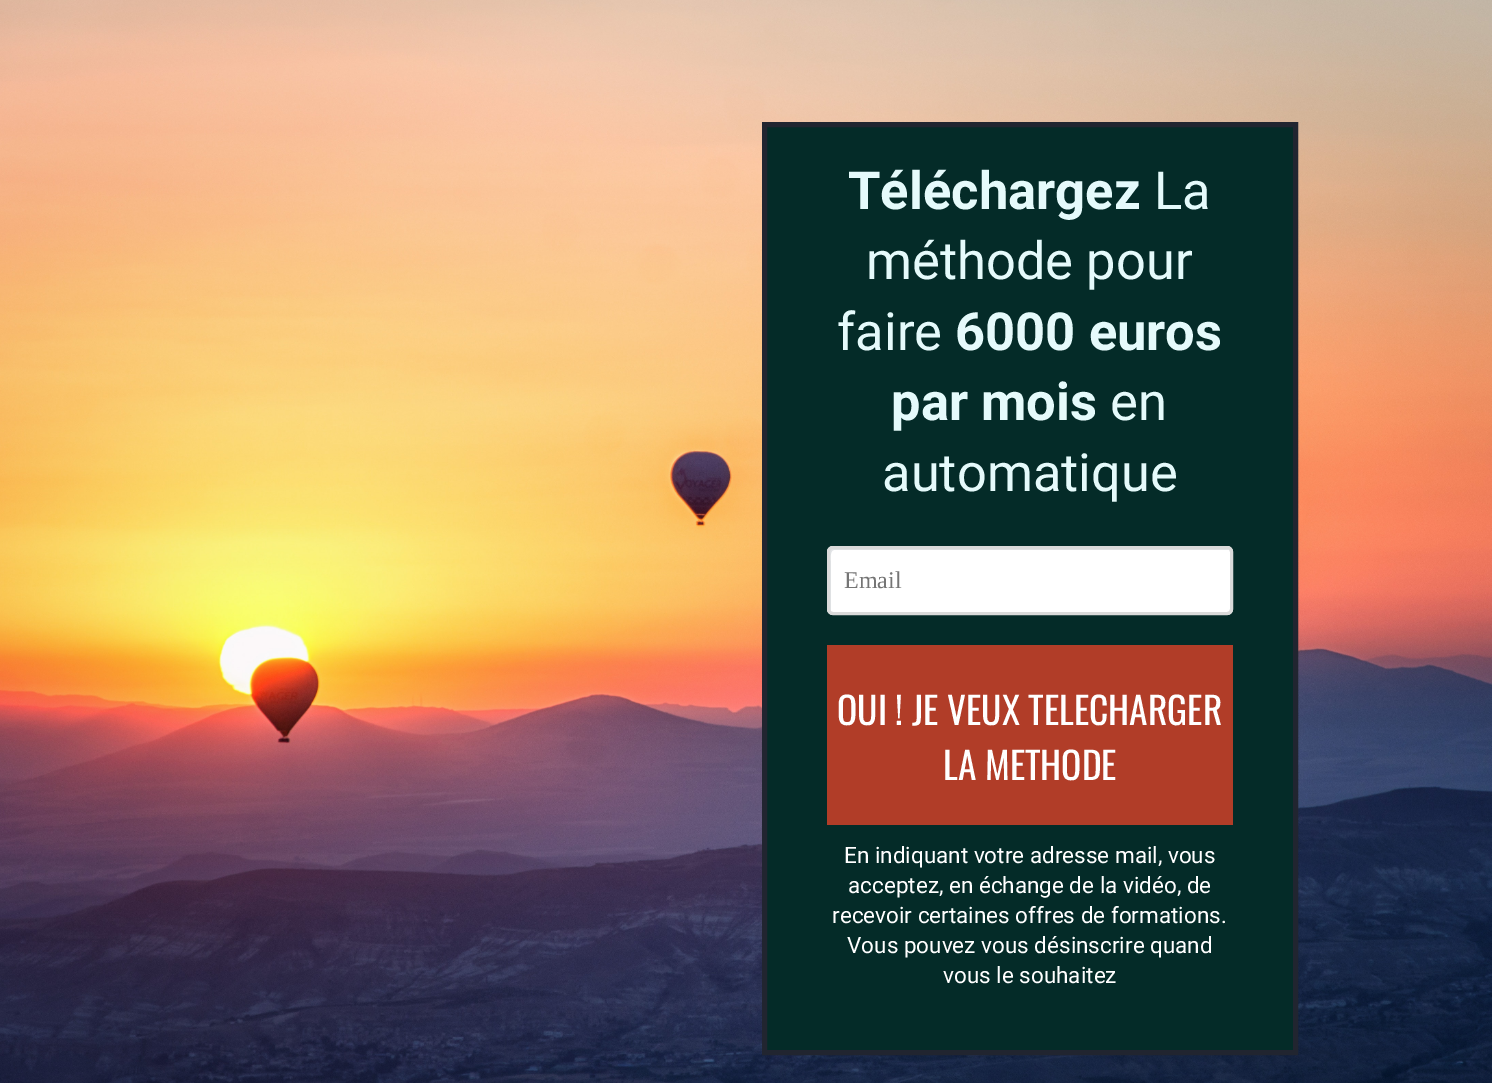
%!PS
<< /PageSize [1492 1083] >> setpagedevice
/rgb { 3 { 255 div 3 1 roll } repeat setrgbcolor } def
/font { [ exch dup neg 0 0 3 -1 roll 0 0 ] selectfont } def
/roundrect { 5 dict begin { /r /h /w /y /x } { exch def } forall
  x r add y moveto x w add y 2 copy h add r arct x w add y h add x 1 index r arct
  x y h add x y r arct x y 2 copy exch w add exch r arct closepath end } def
/picture { 5 dict begin { /h /w /y /x /name } { exch def } forall
  gsave x y translate w h scale
  w h 8 [w 0 0 h 0 0] name (r) file false 3 colorimage grestore end } def
0 1083 translate 1 -1 scale
4 setmiterlimit
255 255 255 rgb
0 0 1492 1083 rectfill
(img/1.rgb) 0 0 1492 1083 picture
4 43 40 rgb
764.5 124.5 moveto 1295.5 124.5 lineto 1295.5 1052.5 lineto 764.5 1052.5 lineto closepath gsave fill grestore
33 37 48 rgb
5 setlinewidth
stroke
255 255 255 rgb
827 546 406 69 6 roundrect fill
226 228 231 rgb
834 550 moveto 1228 550 lineto 1230 550 lineto 1229 550 1228 549 1227 549 curveto 833 549 lineto 831 549 830 550 830 552 curveto 830 609 lineto 830 610 830 611 831 611 curveto 831 563 lineto 831 563 829 550 834 550 curveto closepath fill
218 218 218 rgb
3 setlinewidth
828.5 547.5 403 66 4.5 roundrect stroke
177 61 40 rgb
827 645 406 180 rectfill
/Roboto-Bold 52.5 font
229 250 251 rgb
848 209 moveto (Téléchargez) show
/Roboto-Regular 52.5 font
[
  [(La) 1154 209]
  [(méthode pour) 866 279]
  [(faire) 837 350]
] { aload pop moveto show } forall
/Roboto-Bold 52.5 font
955 350 moveto (6000 euros) show
891 420 moveto (par mois) show
/Roboto-Regular 52.5 font
1110 420 moveto (en) show
882 491 moveto (automatique) show
/LiberationSerif-Regular 24 font
117 117 117 rgb
844 588 moveto (Email) show
/Oswald-Regular 37.5 font
255 255 255 rgb
837 725 moveto (OUI ! JE VEUX TELECHARGER) show
943 780 moveto (LA METHODE) show
/Roboto-Regular 22.5 font
[
  [(En indiquant votre adresse mail, vous) 844 863]
  [(acceptez, en échange de la vidéo, de) 848 893]
  [(recevoir certaines offres de formations.) 832 923]
  [(Vous pouvez vous désinscrire quand) 847 953]
  [(vous le souhaitez) 943 983]
] { aload pop moveto show } forall
showpage
